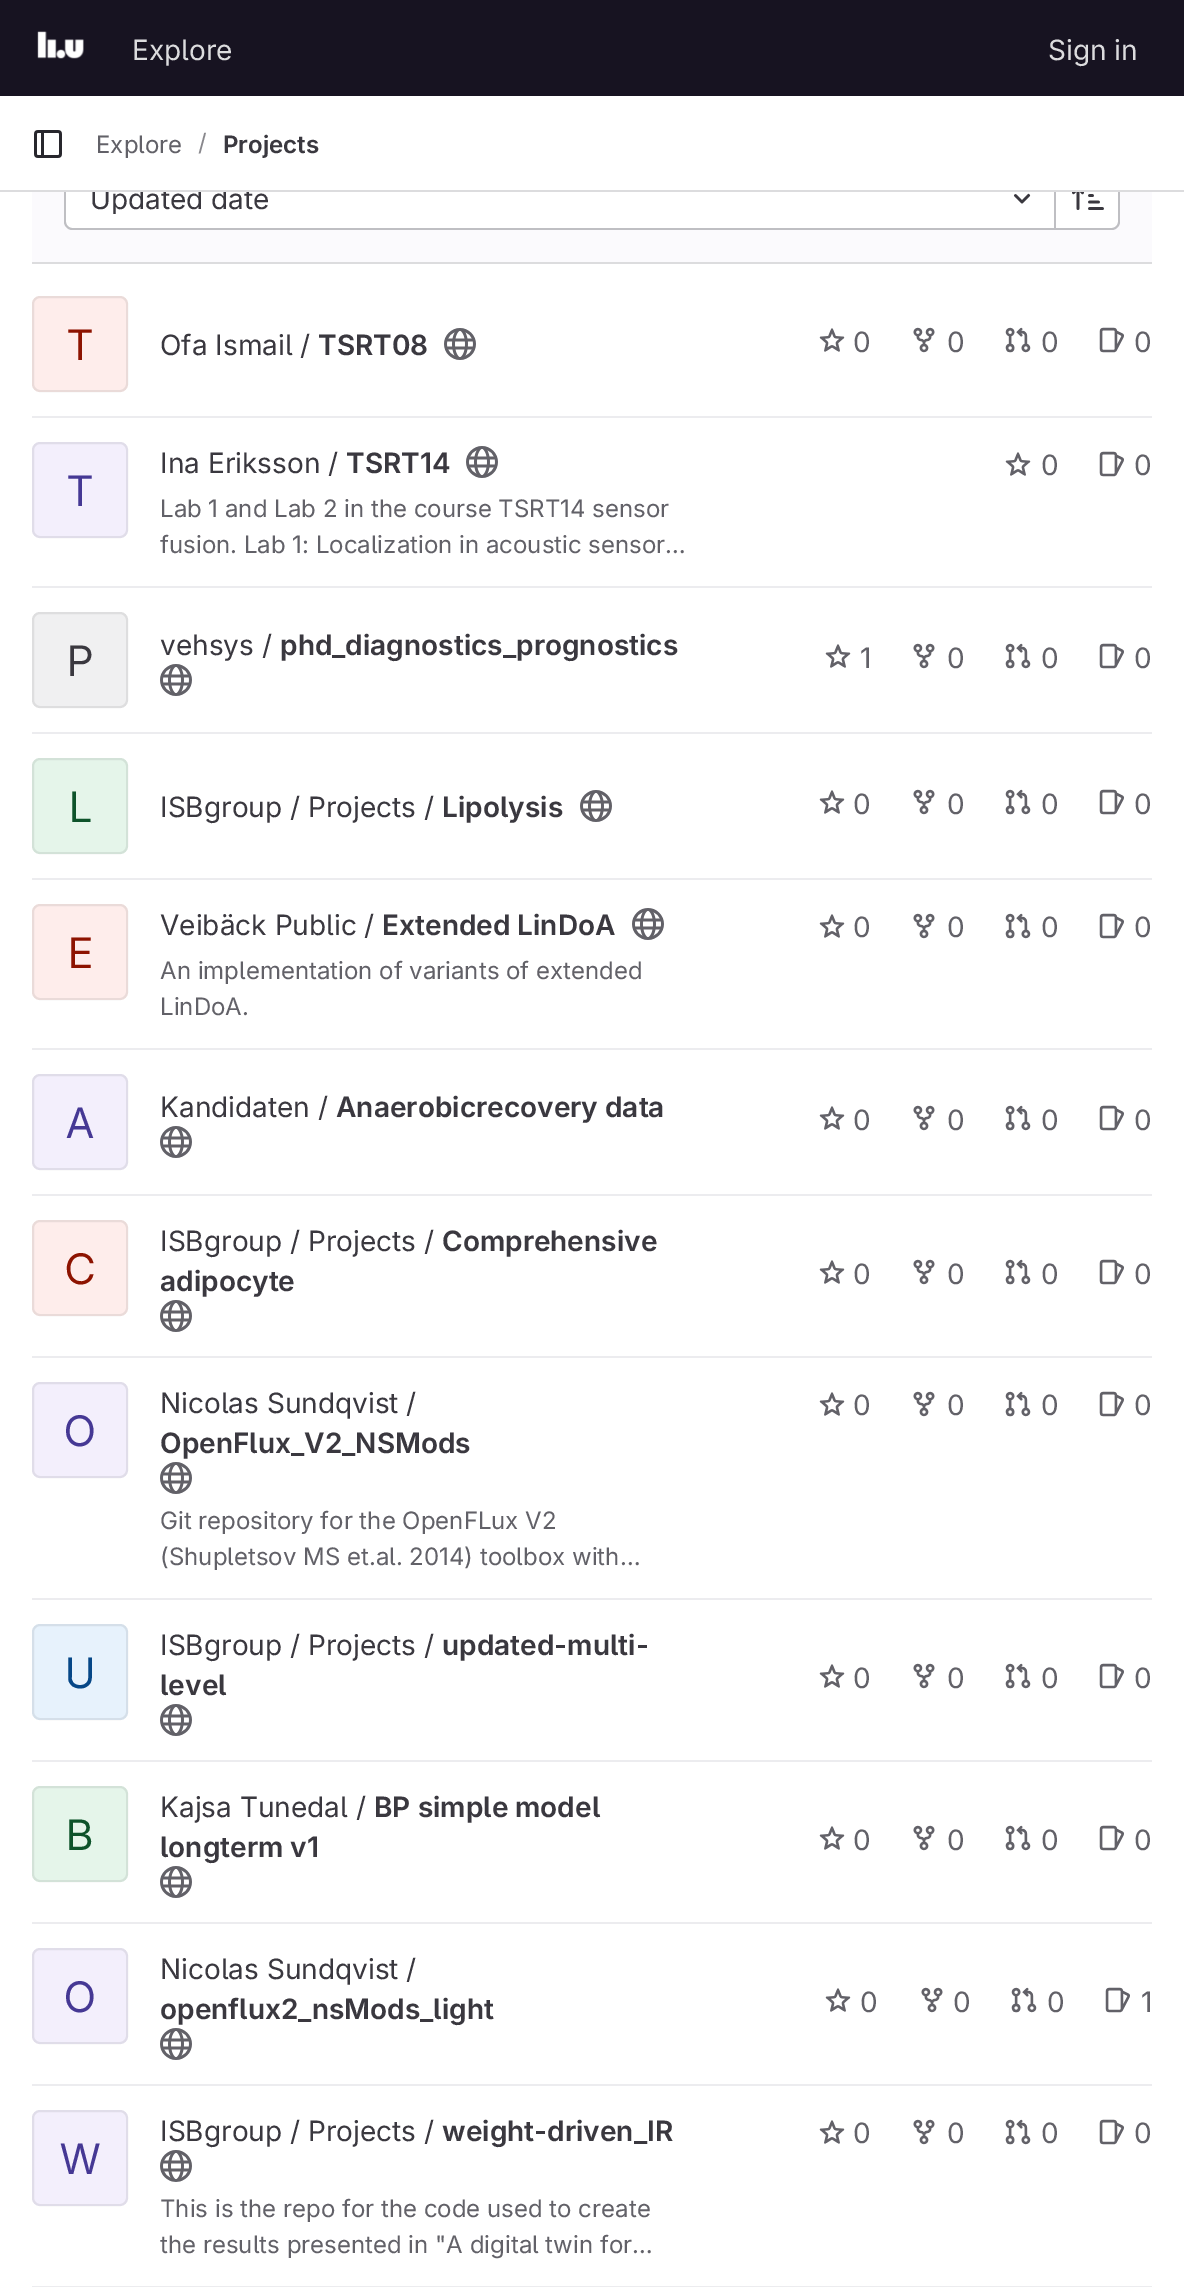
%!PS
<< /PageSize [1184 2287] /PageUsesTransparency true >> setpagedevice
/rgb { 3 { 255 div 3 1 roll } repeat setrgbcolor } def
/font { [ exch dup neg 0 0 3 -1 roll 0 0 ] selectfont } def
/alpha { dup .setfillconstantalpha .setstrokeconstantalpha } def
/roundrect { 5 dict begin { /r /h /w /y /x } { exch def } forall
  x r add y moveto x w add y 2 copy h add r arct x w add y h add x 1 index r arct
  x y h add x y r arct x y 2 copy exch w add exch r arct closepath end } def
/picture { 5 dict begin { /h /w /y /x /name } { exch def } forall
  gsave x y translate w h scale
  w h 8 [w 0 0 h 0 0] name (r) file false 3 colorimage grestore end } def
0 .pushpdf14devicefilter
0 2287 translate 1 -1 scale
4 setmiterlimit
255 255 255 rgb
0 0 1184 2287 rectfill
23 19 33 rgb
0 0 1184 96 rectfill
(img/1.rgb) 37 31 47 28 picture
(img/2.rgb) 34 130 28 28 picture
251 250 253 rgb
32 192 1120 70 rectfill
220 220 222 rgb
32 262 1120 2 rectfill
255 255 255 rgb
72 168 moveto 1054 168 lineto 1054 228 lineto 72 228 lineto 68.5 228 66 225.5 66 222 curveto 66 174 lineto 66 170.5 68.5 168 72 168 curveto closepath fill
191 191 195 rgb
72 166 moveto 1054 166 lineto 1054 230 lineto 72 230 lineto 68 230 64 226 64 222 curveto 64 174 lineto 64 170 68 166 72 166 curveto closepath 72 168 moveto 1054 168 lineto 1054 228 lineto 72 228 lineto 69 228 66 225 66 222 curveto 66 174 lineto 66 171 69 168 72 168 curveto closepath eofill
(img/3.rgb) 1013 193 18 11 picture
255 255 255 rgb
1056 168 moveto 1112 168 lineto 1115.5 168 1118 170.5 1118 174 curveto 1118 222 lineto 1118 225.5 1115.5 228 1112 228 curveto 1056 228 lineto closepath fill
191 191 195 rgb
1056 166 moveto 1112 166 lineto 1116 166 1120 170 1120 174 curveto 1120 222 lineto 1120 226 1116 230 1112 230 curveto 1056 230 lineto closepath 1056 168 moveto 1112 168 lineto 1115 168 1118 171 1118 174 curveto 1118 222 lineto 1118 225 1115 228 1112 228 curveto 1056 228 lineto closepath eofill
1054 192 2 38 rectfill
(img/4.rgb) 1072 192 32 18 picture
236 236 239 rgb
32 416 1120 2 rectfill
254 237 235 rgb
32 296 96 96 8 roundrect fill
0.08 alpha
5 5 6 rgb
2 setlinewidth
33 297 94 94 7 roundrect stroke
1 alpha
(img/5.rgb) 444 328 32 32 picture
(img/6.rgb) 819 328 26 24 picture
(img/7.rgb) 913 327 22 26 picture
(img/8.rgb) 1005 327 26 26 picture
(img/9.rgb) 1099 327 25 26 picture
236 236 239 rgb
32 586 1120 2 rectfill
(img/5.rgb) 466 446 32 32 picture
(img/10.rgb) 1005 452 26 24 picture
(img/9.rgb) 1099 451 25 26 picture
243 239 252 rgb
32 442 96 96 8 roundrect fill
0.08 alpha
5 5 6 rgb
33 443 94 94 7 roundrect stroke
1 alpha
236 236 239 rgb
32 732 1120 2 rectfill
240 240 241 rgb
32 612 96 96 8 roundrect fill
0.08 alpha
5 5 6 rgb
33 613 94 94 7 roundrect stroke
1 alpha
(img/5.rgb) 160 664 32 32 picture
(img/11.rgb) 825 644 26 24 picture
(img/7.rgb) 913 643 22 26 picture
(img/8.rgb) 1005 643 26 26 picture
(img/12.rgb) 1099 643 25 26 picture
236 236 239 rgb
32 878 1120 2 rectfill
229 245 234 rgb
32 758 96 96 8 roundrect fill
0.08 alpha
5 5 6 rgb
33 759 94 94 7 roundrect stroke
1 alpha
(img/5.rgb) 580 790 32 32 picture
(img/6.rgb) 819 790 26 24 picture
(img/7.rgb) 913 789 22 26 picture
(img/8.rgb) 1005 789 26 26 picture
(img/9.rgb) 1099 789 25 26 picture
236 236 239 rgb
32 1048 1120 2 rectfill
(img/13.rgb) 632 908 32 32 picture
(img/6.rgb) 819 914 26 24 picture
(img/7.rgb) 913 913 22 26 picture
(img/14.rgb) 1005 913 26 26 picture
(img/9.rgb) 1099 913 25 26 picture
254 237 235 rgb
32 904 96 96 8 roundrect fill
0.08 alpha
5 5 6 rgb
33 905 94 94 7 roundrect stroke
1 alpha
236 236 239 rgb
32 1194 1120 2 rectfill
243 239 252 rgb
32 1074 96 96 8 roundrect fill
0.08 alpha
5 5 6 rgb
33 1075 94 94 7 roundrect stroke
1 alpha
(img/5.rgb) 160 1126 32 32 picture
(img/6.rgb) 819 1106 26 24 picture
(img/15.rgb) 913 1105 22 26 picture
(img/8.rgb) 1005 1105 26 26 picture
(img/9.rgb) 1099 1105 25 26 picture
236 236 239 rgb
32 1356 1120 2 rectfill
254 237 235 rgb
32 1220 96 96 8 roundrect fill
0.08 alpha
5 5 6 rgb
33 1221 94 94 7 roundrect stroke
1 alpha
(img/5.rgb) 160 1300 32 32 picture
(img/6.rgb) 819 1260 26 24 picture
(img/16.rgb) 913 1259 22 26 picture
(img/17.rgb) 1005 1259 26 26 picture
(img/9.rgb) 1099 1259 25 26 picture
236 236 239 rgb
32 1598 1120 2 rectfill
(img/5.rgb) 160 1462 32 32 picture
(img/6.rgb) 819 1392 26 24 picture
(img/7.rgb) 913 1391 22 26 picture
(img/8.rgb) 1005 1391 26 26 picture
(img/9.rgb) 1099 1391 25 26 picture
243 239 252 rgb
32 1382 96 96 8 roundrect fill
0.08 alpha
5 5 6 rgb
33 1383 94 94 7 roundrect stroke
1 alpha
236 236 239 rgb
32 1760 1120 2 rectfill
231 242 252 rgb
32 1624 96 96 8 roundrect fill
0.08 alpha
5 5 6 rgb
33 1625 94 94 7 roundrect stroke
1 alpha
(img/5.rgb) 160 1704 32 32 picture
(img/18.rgb) 819 1664 26 24 picture
(img/16.rgb) 913 1663 22 26 picture
(img/17.rgb) 1005 1663 26 26 picture
(img/19.rgb) 1099 1663 25 26 picture
236 236 239 rgb
32 1922 1120 2 rectfill
229 245 234 rgb
32 1786 96 96 8 roundrect fill
0.08 alpha
5 5 6 rgb
33 1787 94 94 7 roundrect stroke
1 alpha
(img/5.rgb) 160 1866 32 32 picture
(img/6.rgb) 819 1826 26 24 picture
(img/16.rgb) 913 1825 22 26 picture
(img/17.rgb) 1005 1825 26 26 picture
(img/9.rgb) 1099 1825 25 26 picture
236 236 239 rgb
32 2084 1120 2 rectfill
243 239 252 rgb
32 1948 96 96 8 roundrect fill
0.08 alpha
5 5 6 rgb
33 1949 94 94 7 roundrect stroke
1 alpha
(img/5.rgb) 160 2028 32 32 picture
(img/6.rgb) 825 1988 26 24 picture
(img/20.rgb) 921 1987 22 26 picture
(img/21.rgb) 1011 1987 26 26 picture
(img/9.rgb) 1105 1987 25 26 picture
236 236 239 rgb
32 2286 1120 1 rectfill
(img/22.rgb) 160 2150 32 32 picture
(img/6.rgb) 819 2120 26 24 picture
(img/7.rgb) 913 2119 22 26 picture
(img/8.rgb) 1005 2119 26 26 picture
(img/9.rgb) 1099 2119 25 26 picture
243 239 252 rgb
32 2110 96 96 8 roundrect fill
0.08 alpha
5 5 6 rgb
33 2111 94 94 7 roundrect stroke
/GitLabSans-Regular 28 font
1 alpha
220 220 222 rgb
132 60 moveto (Explore) show
1048 60 moveto (Sign in) show
/GitLabSans-Regular 24 font
98 97 104 rgb
96 153 moveto (Explore) show
137 136 141 rgb
198 151 moveto (/) show
/GitLabSans-SemiBold 24 font
58 56 63 rgb
223 153 moveto (Projects) show
gsave
90 182 180 32 rectclip
/GitLabSans-Regular 28 font
90 209 moveto (Updated date) show
grestore
220 220 222 rgb
0 190 1184 2 rectfill
255 255 255 rgb
64 166 1056 24 rectfill
/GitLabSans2-Regular 42 font
141 19 0 rgb
67 360 moveto (T) show
/GitLabSans-Regular 28 font
58 56 63 rgb
160 355 moveto (Ofa Ismail /) show
/GitLabSans-SemiBold 28 font
318 355 moveto (TSRT08) show
/GitLabSans-Regular 28 font
98 97 104 rgb
[
  [(0) 853 352]
  [(0) 947 352]
  [(0) 1041 352]
  [(0) 1134 352]
] { aload pop moveto show } forall
58 56 63 rgb
160 473 moveto (Ina Eriksson /) show
/GitLabSans-SemiBold 28 font
346 473 moveto (TSRT14) show
/GitLabSans-Regular 24 font
98 97 104 rgb
160 517 moveto (Lab 1 and Lab 2 in the course TSRT14 sensor) show
160 553 moveto (fusion. Lab 1: Localization in acoustic sensor…) show
/GitLabSans-Regular 28 font
1041 475 moveto (0) show
1134 475 moveto (0) show
/GitLabSans2-Regular 42 font
69 56 148 rgb
67 506 moveto (T) show
58 56 63 rgb
67 676 moveto (P) show
/GitLabSans-Regular 28 font
160 655 moveto (vehsys /) show
/GitLabSans-SemiBold 28 font
280 655 moveto (phd_diagnostics_prognostics) show
/GitLabSans-Regular 28 font
98 97 104 rgb
[
  [(1) 860 668]
  [(0) 947 668]
  [(0) 1041 668]
  [(0) 1134 668]
] { aload pop moveto show } forall
/GitLabSans2-Regular 42 font
13 83 42 rgb
69 822 moveto (L) show
/GitLabSans-Regular 28 font
58 56 63 rgb
160 817 moveto (ISBgroup / Projects /) show
/GitLabSans-SemiBold 28 font
442 817 moveto (Lipolysis) show
/GitLabSans-Regular 28 font
98 97 104 rgb
[
  [(0) 853 814]
  [(0) 947 814]
  [(0) 1041 814]
  [(0) 1134 814]
] { aload pop moveto show } forall
58 56 63 rgb
160 935 moveto (Veibäck Public /) show
/GitLabSans-SemiBold 28 font
382 935 moveto (Extended LinDoA) show
/GitLabSans-Regular 24 font
98 97 104 rgb
160 979 moveto (An implementation of variants of extended) show
160 1015 moveto (LinDoA.) show
/GitLabSans-Regular 28 font
[
  [(0) 853 937]
  [(0) 947 937]
  [(0) 1041 937]
  [(0) 1134 937]
] { aload pop moveto show } forall
/GitLabSans2-Regular 42 font
141 19 0 rgb
68 968 moveto (E) show
69 56 148 rgb
66 1138 moveto (A) show
/GitLabSans-Regular 28 font
58 56 63 rgb
160 1117 moveto (Kandidaten /) show
/GitLabSans-SemiBold 28 font
336 1117 moveto (Anaerobicrecovery data) show
/GitLabSans-Regular 28 font
98 97 104 rgb
[
  [(0) 853 1130]
  [(0) 947 1130]
  [(0) 1041 1130]
  [(0) 1134 1130]
] { aload pop moveto show } forall
/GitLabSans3-Regular 42 font
141 19 0 rgb
65 1284 moveto (C) show
/GitLabSans-Regular 28 font
58 56 63 rgb
160 1251 moveto (ISBgroup / Projects /) show
/GitLabSans-SemiBold 28 font
442 1251 moveto (Comprehensive) show
160 1291 moveto (adipocyte) show
/GitLabSans-Regular 28 font
98 97 104 rgb
[
  [(0) 853 1284]
  [(0) 947 1284]
  [(0) 1041 1284]
  [(0) 1134 1284]
] { aload pop moveto show } forall
58 56 63 rgb
160 1413 moveto (Nicolas Sundqvist /) show
/GitLabSans-SemiBold 28 font
160 1453 moveto (OpenFlux_V2_NSMods) show
/GitLabSans-Regular 24 font
98 97 104 rgb
160 1529 moveto (Git repository for the OpenFLux V2) show
160 1565 moveto (\(Shupletsov MS et.al. 2014\) toolbox with…) show
/GitLabSans-Regular 28 font
[
  [(0) 853 1415]
  [(0) 947 1415]
  [(0) 1041 1415]
  [(0) 1134 1415]
] { aload pop moveto show } forall
/GitLabSans2-Regular 42 font
69 56 148 rgb
64 1446 moveto (O) show
6 71 135 rgb
65 1688 moveto (U) show
/GitLabSans-Regular 28 font
58 56 63 rgb
160 1655 moveto (ISBgroup / Projects /) show
/GitLabSans-SemiBold 28 font
442 1655 moveto (updated-multi-) show
160 1695 moveto (level) show
/GitLabSans-Regular 28 font
98 97 104 rgb
[
  [(0) 853 1688]
  [(0) 947 1688]
  [(0) 1041 1688]
  [(0) 1134 1688]
] { aload pop moveto show } forall
/GitLabSans2-Regular 42 font
13 83 42 rgb
66 1850 moveto (B) show
/GitLabSans-Regular 28 font
58 56 63 rgb
160 1817 moveto (Kajsa Tunedal /) show
/GitLabSans-SemiBold 28 font
374 1817 moveto (BP simple model) show
160 1857 moveto (longterm v1) show
/GitLabSans-Regular 28 font
98 97 104 rgb
[
  [(0) 853 1850]
  [(0) 947 1850]
  [(0) 1041 1850]
  [(0) 1134 1850]
] { aload pop moveto show } forall
/GitLabSans2-Regular 42 font
69 56 148 rgb
64 2012 moveto (O) show
/GitLabSans-Regular 28 font
58 56 63 rgb
160 1979 moveto (Nicolas Sundqvist /) show
/GitLabSans-SemiBold 28 font
160 2019 moveto (openflux2_nsMods_light) show
/GitLabSans-Regular 28 font
98 97 104 rgb
[
  [(0) 860 2012]
  [(0) 953 2012]
  [(0) 1047 2012]
  [(1) 1141 2012]
] { aload pop moveto show } forall
58 56 63 rgb
160 2141 moveto (ISBgroup / Projects /) show
/GitLabSans-SemiBold 28 font
442 2141 moveto (weight-driven_IR) show
/GitLabSans-Regular 24 font
98 97 104 rgb
160 2217 moveto (This is the repo for the code used to create) show
160 2253 moveto (the results presented in "A digital twin for…) show
/GitLabSans-Regular 28 font
[
  [(0) 853 2143]
  [(0) 947 2143]
  [(0) 1041 2143]
  [(0) 1134 2143]
] { aload pop moveto show } forall
/GitLabSans2-Regular 42 font
69 56 148 rgb
60 2174 moveto (W) show
.poppdf14devicefilter showpage
